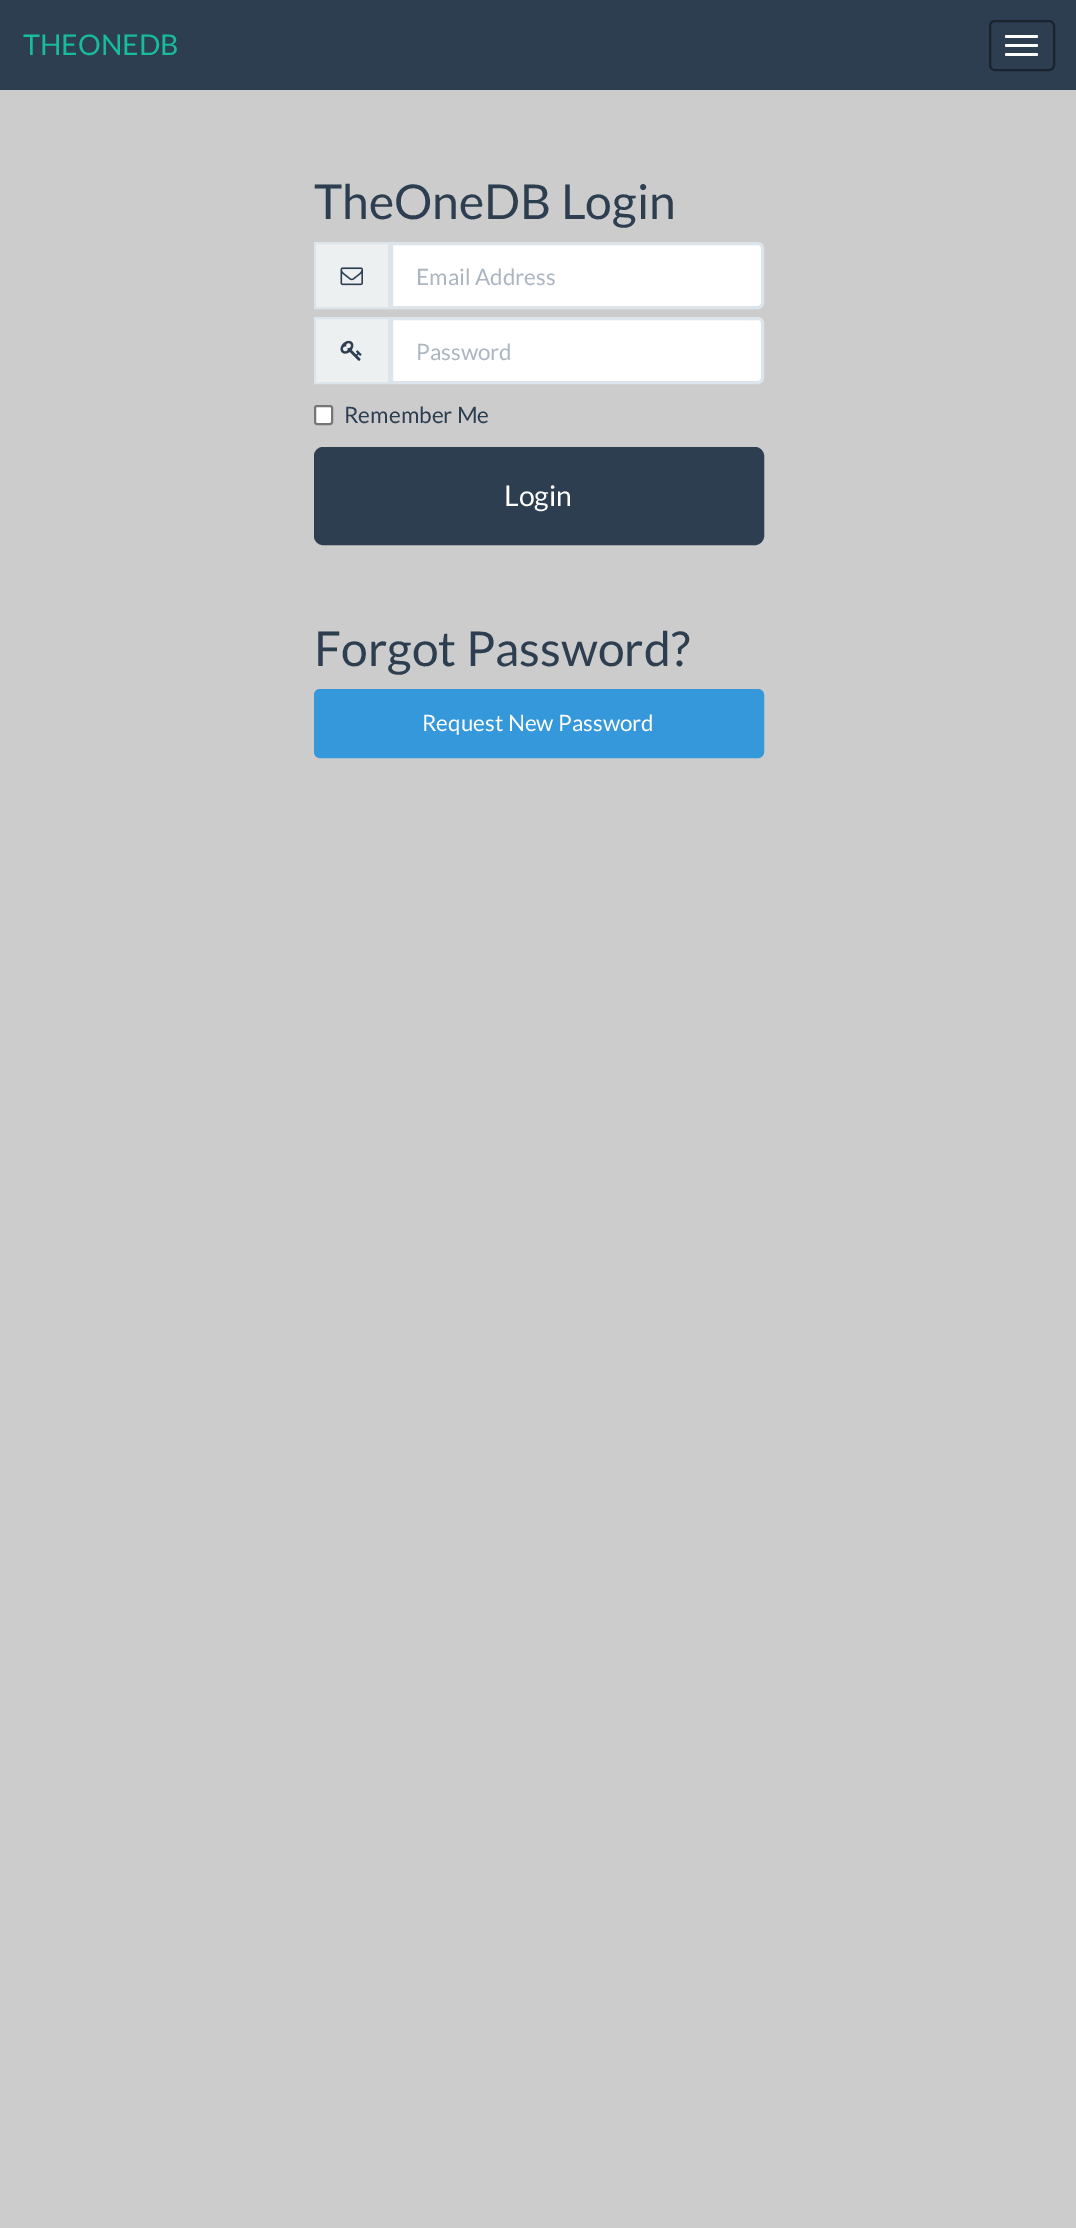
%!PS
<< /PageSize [1076 2228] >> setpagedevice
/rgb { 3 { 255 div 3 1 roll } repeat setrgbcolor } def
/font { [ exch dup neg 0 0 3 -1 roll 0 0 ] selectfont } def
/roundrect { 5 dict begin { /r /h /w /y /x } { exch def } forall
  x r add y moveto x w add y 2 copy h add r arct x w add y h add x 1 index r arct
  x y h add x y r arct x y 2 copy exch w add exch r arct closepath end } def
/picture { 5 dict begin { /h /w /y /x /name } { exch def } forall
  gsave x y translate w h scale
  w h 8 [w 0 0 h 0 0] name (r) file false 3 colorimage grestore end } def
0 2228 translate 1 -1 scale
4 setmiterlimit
204 204 204 rgb
0 0 1076 2228 rectfill
44 62 80 rgb
0 0 1076 90 rectfill
26 36 47 rgb
2 setlinewidth
990 21 64 49 5 roundrect stroke
255 255 255 rgb
1005 35 33 3 1.5 roundrect fill
1005 44 33 3 1.5 roundrect fill
1005 53 33 3 1.5 roundrect fill
236 240 241 rgb
315 243 moveto 389 243 lineto 389 308 lineto 315 308 lineto closepath gsave fill grestore
220 228 236 rgb
stroke
(img/1.rgb) 340 267 23 19 picture
255 255 255 rgb
391.5 243.5 moveto 758 243.5 lineto 760.5 243.5 762.5 245.5 762.5 248 curveto 762.5 303 lineto 762.5 305.5 760.5 307.5 758 307.5 curveto 391.5 307.5 lineto closepath gsave fill grestore
220 228 236 rgb
3 setlinewidth
stroke
236 240 241 rgb
315 318 moveto 389 318 lineto 389 383 lineto 315 383 lineto closepath gsave fill grestore
220 228 236 rgb
2 setlinewidth
stroke
(img/2.rgb) 340 340 22 21 picture
255 255 255 rgb
391.5 318.5 moveto 758 318.5 lineto 760.5 318.5 762.5 320.5 762.5 323 curveto 762.5 378 lineto 762.5 380.5 760.5 382.5 758 382.5 curveto 391.5 382.5 lineto closepath gsave fill grestore
220 228 236 rgb
3 setlinewidth
stroke
255 255 255 rgb
315 406 17 18 2 roundrect gsave fill grestore
118 118 118 rgb
2 setlinewidth
stroke
44 62 80 rgb
315.5 448.5 447 95 7.5 roundrect gsave fill grestore
3 setlinewidth
stroke
52 152 219 rgb
315.5 690.5 447 66 4.5 roundrect gsave fill grestore
stroke
/Lato-Regular 28.5 font
24 188 156 rgb
23 55 moveto (THEONEDB) show
/Lato-Regular 48 font
44 62 80 rgb
314 219 moveto (TheOneDB Login) show
/Lato-Regular 22.5 font
172 182 192 rgb
416 285 moveto (Email Address) show
416 360 moveto (Password) show
44 62 80 rgb
344 423 moveto (Remember Me) show
/Lato-Regular 28.5 font
255 255 255 rgb
504 506 moveto (Login) show
/Lato-Regular 48 font
44 62 80 rgb
314 666 moveto (Forgot Password?) show
/Lato-Regular 22.5 font
255 255 255 rgb
422 731 moveto (Request New Password) show
showpage
